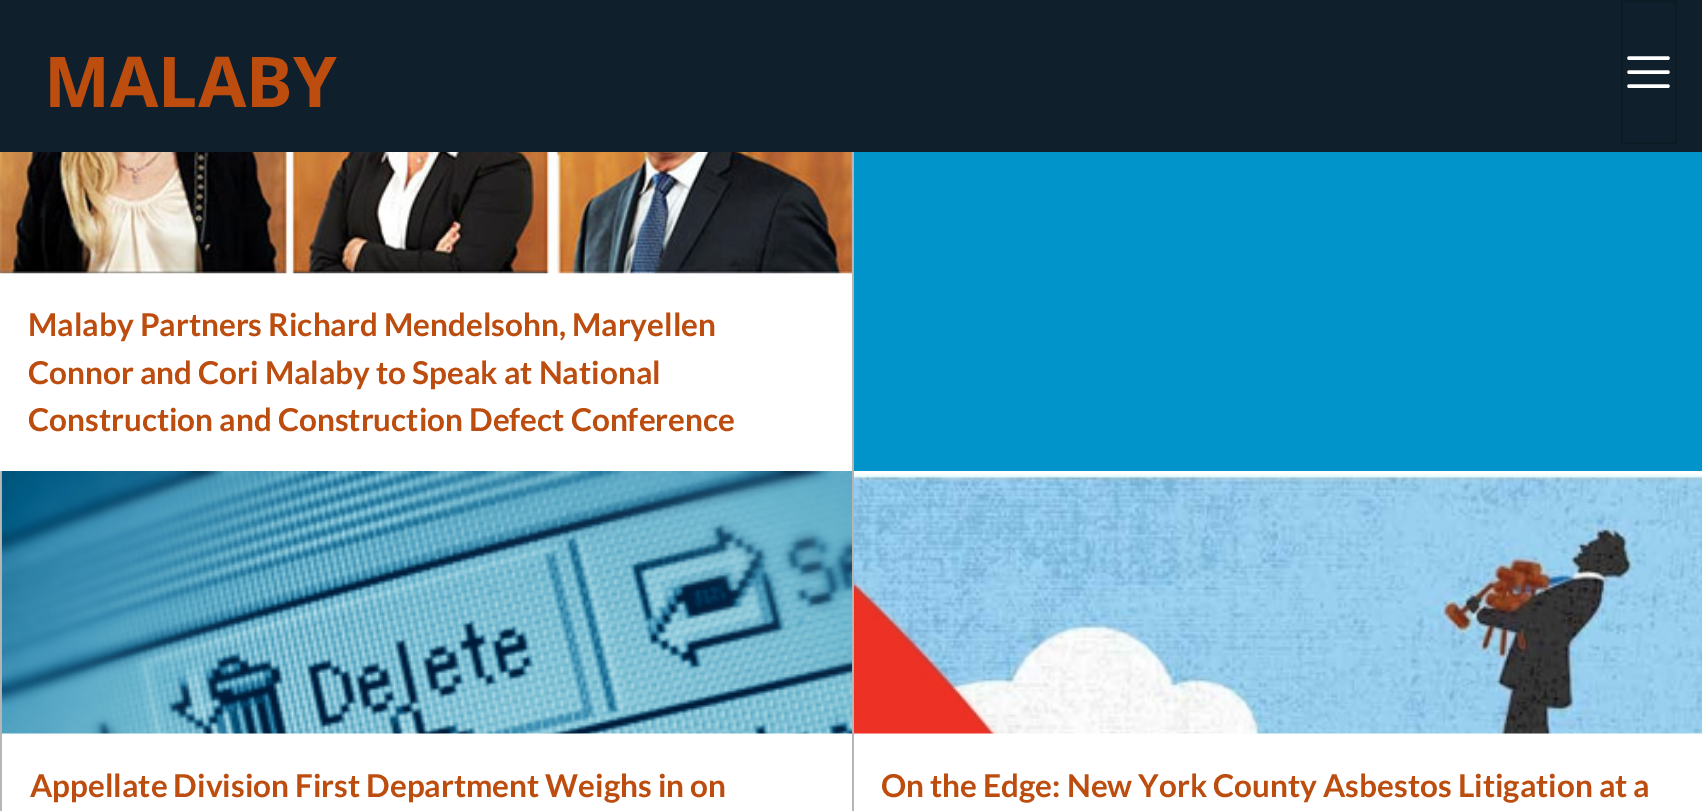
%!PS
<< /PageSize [1702 811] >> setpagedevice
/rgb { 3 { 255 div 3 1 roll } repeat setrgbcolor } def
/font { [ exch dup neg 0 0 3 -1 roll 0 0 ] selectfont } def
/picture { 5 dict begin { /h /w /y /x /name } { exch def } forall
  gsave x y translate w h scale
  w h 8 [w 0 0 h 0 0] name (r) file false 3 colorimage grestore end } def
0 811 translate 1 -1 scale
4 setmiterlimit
255 255 255 rgb
0 0 1702 811 rectfill
15 32 44 rgb
0 0 1702 152 rectfill
13 27 37 rgb
2 setlinewidth
1622 1 54 142 rectstroke
255 255 255 rgb
3.5 setlinewidth
1 setlinecap
1629 58 moveto 1668 58 lineto 1629 72 moveto 1668 72 lineto 1629 86 moveto 1668 86 lineto stroke
(img/1.rgb) 0 152 852 122 picture
[
  [854 152 848 319 1 148 203]
  [852 152 2 659 182 182 182]
  [0 471 2 340 182 182 182]
] { aload pop rgb rectfill } forall
(img/2.rgb) 1 471 851 263 picture
(img/3.rgb) 854 473 848 261 picture
/NotoSans-Bold 70 font
189 77 15 rgb
44 107 moveto (MALABY) show
/Lato-Bold 31.5 font
[
  [(Malaby Partners Richard Mendelsohn, Maryellen) 28 336]
  [(Connor and Cori Malaby to Speak at National) 28 384]
  [(Construction and Construction Defect Conference) 28 431]
  [(Appellate Division First Department Weighs in on) 30 797]
  [(On the Edge: New York County Asbestos Litigation at a) 881 797]
] { aload pop moveto show } forall
showpage
